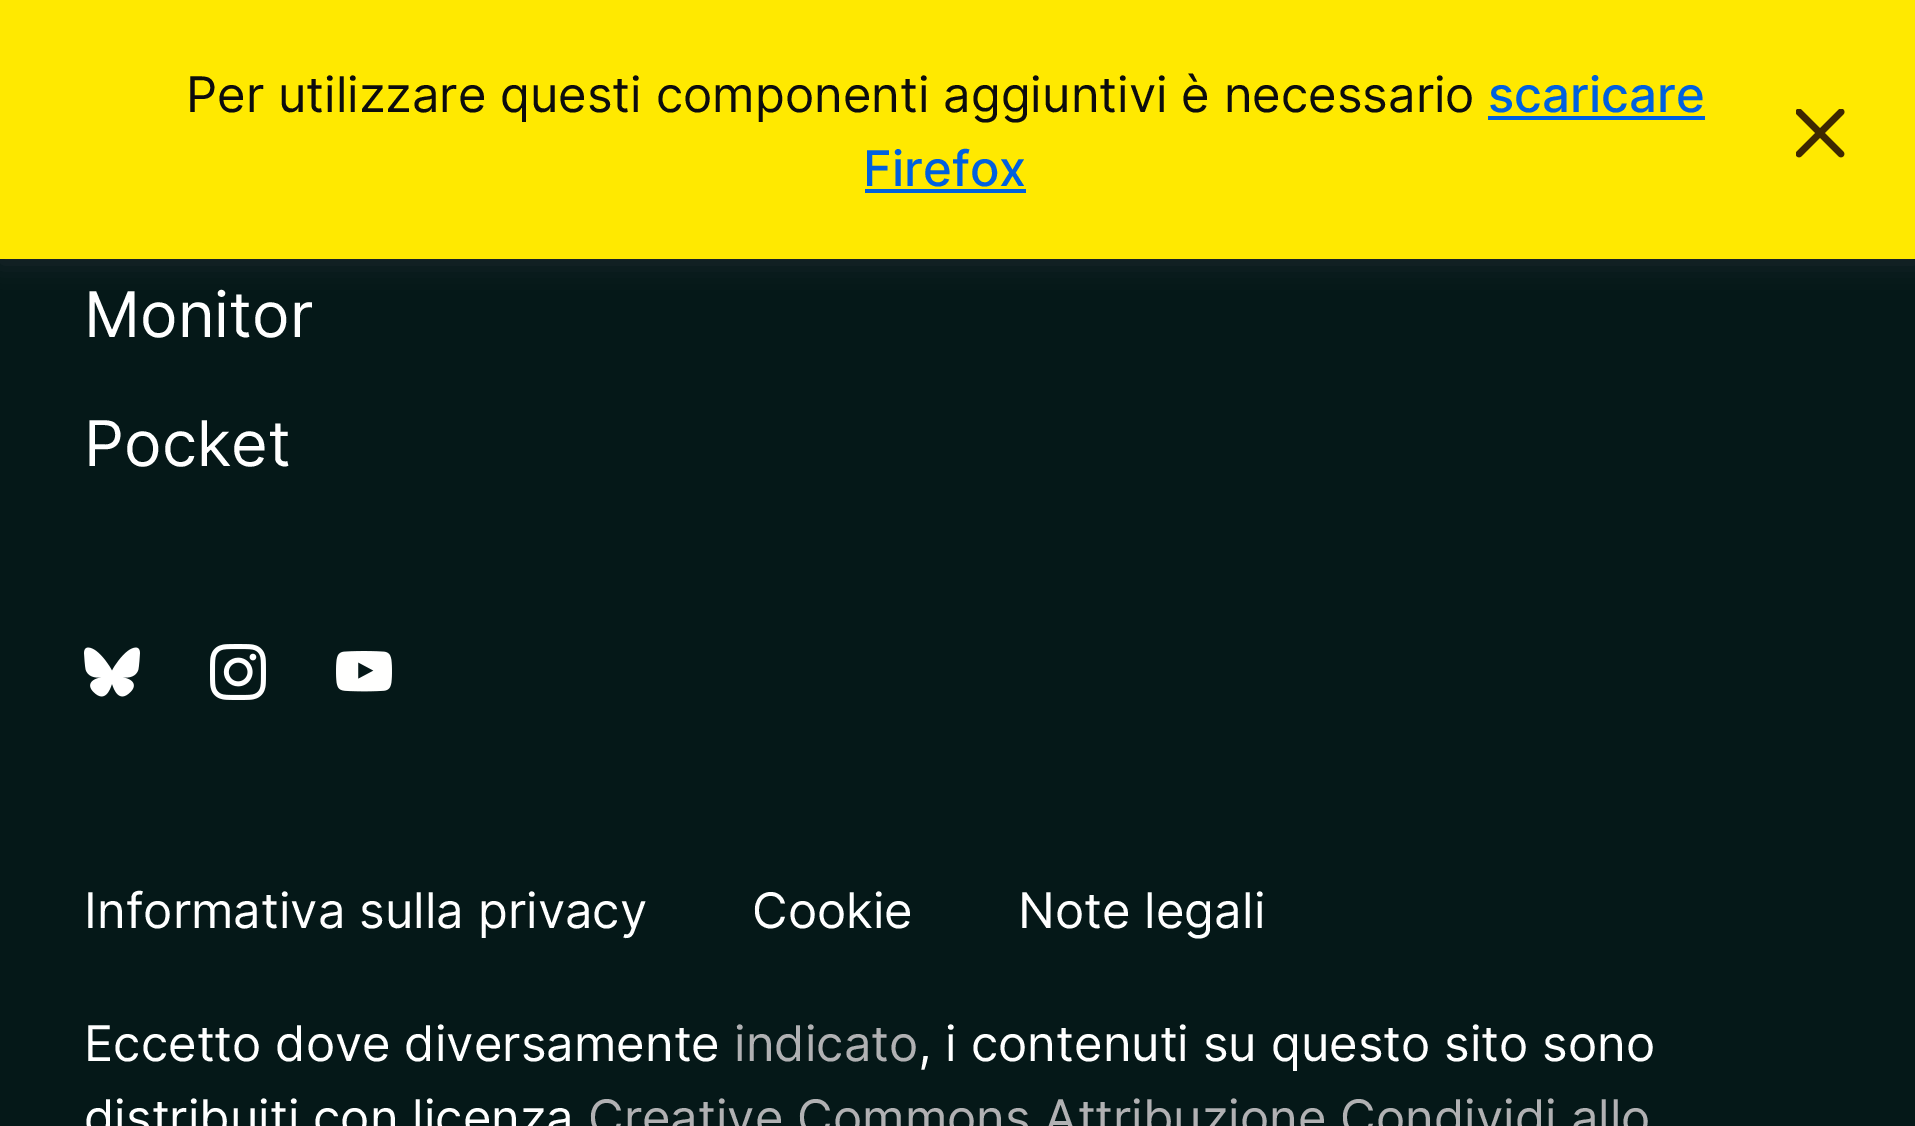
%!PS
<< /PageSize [1915 1126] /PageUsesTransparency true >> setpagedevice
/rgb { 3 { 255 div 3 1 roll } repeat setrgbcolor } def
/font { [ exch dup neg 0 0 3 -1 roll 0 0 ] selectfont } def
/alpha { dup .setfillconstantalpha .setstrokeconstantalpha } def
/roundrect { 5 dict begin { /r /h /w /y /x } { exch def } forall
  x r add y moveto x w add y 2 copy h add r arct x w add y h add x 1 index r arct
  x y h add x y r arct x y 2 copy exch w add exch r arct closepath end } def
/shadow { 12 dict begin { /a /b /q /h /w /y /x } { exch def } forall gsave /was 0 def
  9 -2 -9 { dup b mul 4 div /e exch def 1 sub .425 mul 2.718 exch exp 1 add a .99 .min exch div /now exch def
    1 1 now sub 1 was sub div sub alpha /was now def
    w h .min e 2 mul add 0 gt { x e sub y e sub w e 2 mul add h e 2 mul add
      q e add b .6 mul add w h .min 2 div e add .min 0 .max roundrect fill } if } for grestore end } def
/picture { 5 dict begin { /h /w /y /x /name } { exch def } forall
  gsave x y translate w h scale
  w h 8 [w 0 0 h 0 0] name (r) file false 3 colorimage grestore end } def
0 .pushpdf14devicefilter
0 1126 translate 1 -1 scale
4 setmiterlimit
5 24 24 rgb
0 0 1915 1126 rectfill
52 58 64 rgb
0 4 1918 259 0 12 0.5 shadow
[
  [0 0 1915 259 255 233 0]
  [1488 116 217 4 0 96 223]
  [865 189 161 4 0 96 223]
] { aload pop rgb rectfill } forall
(img/1.rgb) 1796 109 49 49 picture
(img/2.rgb) 84 647 56 50 picture
(img/3.rgb) 210 644 56 56 picture
(img/4.rgb) 336 651 56 41 picture
/Inter-Regular 49 font
12 12 13 rgb
186 112 moveto (Per utilizzare questi componenti aggiuntivi è necessario) show
/Inter-Medium 49 font
0 96 223 rgb
1488 112 moveto (scaricare) show
863 186 moveto (Firefox) show
/Inter-Regular 63 font
255 255 255 rgb
84 337 moveto (Monitor) show
84 466 moveto (Pocket) show
/Inter-Regular 49 font
[
  [(Informativa sulla privacy) 84 928]
  [(Cookie) 752 928]
  [(Note legali) 1018 928]
  [(Eccetto dove diversamente) 84 1061]
] { aload pop moveto show } forall
177 177 179 rgb
734 1061 moveto (indicato) show
255 255 255 rgb
918 1061 moveto (, i contenuti su questo sito sono) show
84 1135 moveto (distribuiti con licenza) show
177 177 179 rgb
588 1135 moveto (Creative Commons Attribuzione Condividi allo) show
.poppdf14devicefilter showpage
